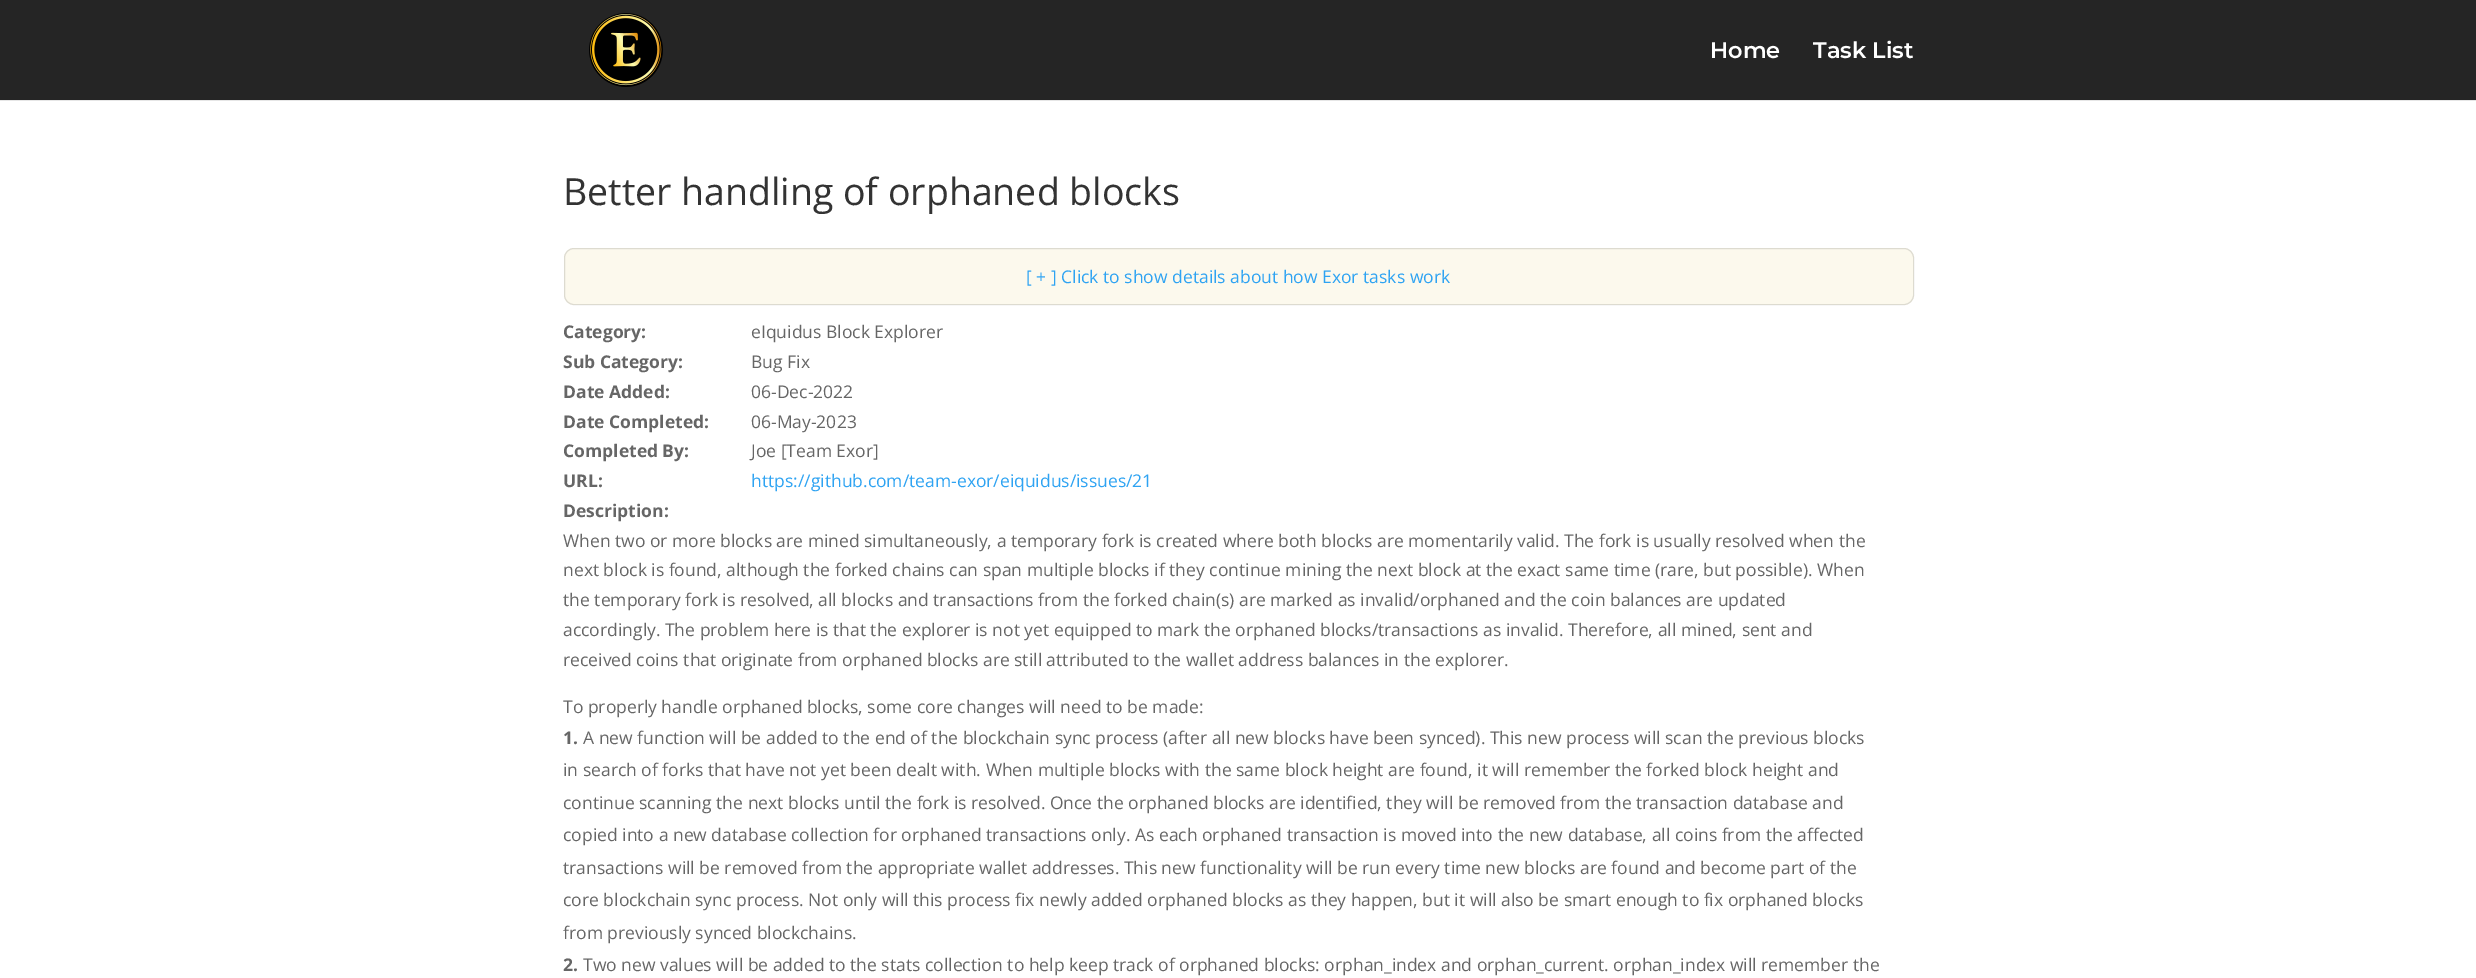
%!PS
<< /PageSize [2476 978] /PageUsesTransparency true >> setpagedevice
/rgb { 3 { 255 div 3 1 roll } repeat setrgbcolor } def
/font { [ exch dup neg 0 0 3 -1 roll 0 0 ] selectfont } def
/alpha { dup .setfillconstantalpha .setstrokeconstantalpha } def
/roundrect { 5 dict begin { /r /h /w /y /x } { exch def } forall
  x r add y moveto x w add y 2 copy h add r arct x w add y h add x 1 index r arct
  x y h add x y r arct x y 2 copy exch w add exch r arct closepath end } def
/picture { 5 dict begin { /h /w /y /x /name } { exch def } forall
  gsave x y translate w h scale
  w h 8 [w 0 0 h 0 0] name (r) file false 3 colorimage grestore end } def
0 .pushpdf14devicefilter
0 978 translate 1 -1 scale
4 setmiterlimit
255 255 255 rgb
0 0 2476 978 rectfill
230 230 230 rgb
0 100 2476 1 rectfill
37 37 37 rgb
0 0 2476 100 rectfill
(img/1.rgb) 589 13 74 74 picture
252 249 237 rgb
564 248 1350 57 10 roundrect fill
0.12 alpha
0 0 0 rgb
564.5 248.5 1349 56 9.5 roundrect stroke
/Montserrat-SemiBold 22.5 font
1 alpha
255 255 255 rgb
1710 58 moveto (Home) show
1813 58 moveto (Task List) show
/OpenSans-Regular 37.5 font
51 51 51 rgb
563 205 moveto (Better handling of orphaned blocks) show
/OpenSans-Regular 17.5 font
46 163 242 rgb
1026 283 moveto ([ + ] Click to show details about how Exor tasks work) show
/OpenSans-Bold 17.5 font
102 102 102 rgb
563 338 moveto (Category:) show
/OpenSans-Regular 17.5 font
751 338 moveto (eIquidus Block Explorer) show
/OpenSans-Bold 17.5 font
563 368 moveto (Sub Category:) show
/OpenSans-Regular 17.5 font
751 368 moveto (Bug Fix) show
/OpenSans-Bold 17.5 font
563 398 moveto (Date Added:) show
/OpenSans-Regular 17.5 font
751 398 moveto (06-Dec-2022) show
/OpenSans-Bold 17.5 font
563 428 moveto (Date Completed:) show
/OpenSans-Regular 17.5 font
751 428 moveto (06-May-2023) show
/OpenSans-Bold 17.5 font
563 457 moveto (Completed By:) show
/OpenSans-Regular 17.5 font
751 457 moveto (Joe [Team Exor]) show
/OpenSans-Bold 17.5 font
563 487 moveto (URL:) show
/OpenSans-Regular 17.5 font
46 163 242 rgb
751 487 moveto (https://github.com/team-exor/eiquidus/issues/21) show
/OpenSans-Bold 17.5 font
102 102 102 rgb
563 517 moveto (Description:) show
/OpenSans-Regular 17.5 font
[
  [(When two or more blocks are mined simultaneously, a temporary fork is created where both blocks are momentarily valid. The fork is usually resolved when the) 563 547]
  [(next block is found, although the forked chains can span multiple blocks if they continue mining the next block at the exact same time \(rare, but possible\). When) 563 576]
  [(the temporary fork is resolved, all blocks and transactions from the forked chain\(s\) are marked as invalid/orphaned and the coin balances are updated) 563 606]
  [(accordingly. The problem here is that the explorer is not yet equipped to mark the orphaned blocks/transactions as invalid. Therefore, all mined, sent and) 563 636]
  [(received coins that originate from orphaned blocks are still attributed to the wallet address balances in the explorer.) 563 666]
  [(To properly handle orphaned blocks, some core changes will need to be made:) 563 713]
] { aload pop moveto show } forall
/OpenSans-Bold 17.5 font
563 744 moveto (1.) show
/OpenSans-Regular 17.5 font
[
  [(A new function will be added to the end of the blockchain sync process \(after all new blocks have been synced\). This new process will scan the previous blocks) 583 744]
  [(in search of forks that have not yet been dealt with. When multiple blocks with the same block height are found, it will remember the forked block height and) 563 776]
  [(continue scanning the next blocks until the fork is resolved. Once the orphaned blocks are identified, they will be removed from the transaction database and) 563 809]
  [(copied into a new database collection for orphaned transactions only. As each orphaned transaction is moved into the new database, all coins from the affected) 563 841]
  [(transactions will be removed from the appropriate wallet addresses. This new functionality will be run every time new blocks are found and become part of the) 563 874]
  [(core blockchain sync process. Not only will this process fix newly added orphaned blocks as they happen, but it will also be smart enough to fix orphaned blocks) 563 906]
  [(from previously synced blockchains.) 563 939]
] { aload pop moveto show } forall
/OpenSans-Bold 17.5 font
563 971 moveto (2.) show
/OpenSans-Regular 17.5 font
583 971 moveto (Two new values will be added to the stats collection to help keep track of orphaned blocks: orphan_index and orphan_current. orphan_index will remember the) show
.poppdf14devicefilter showpage
